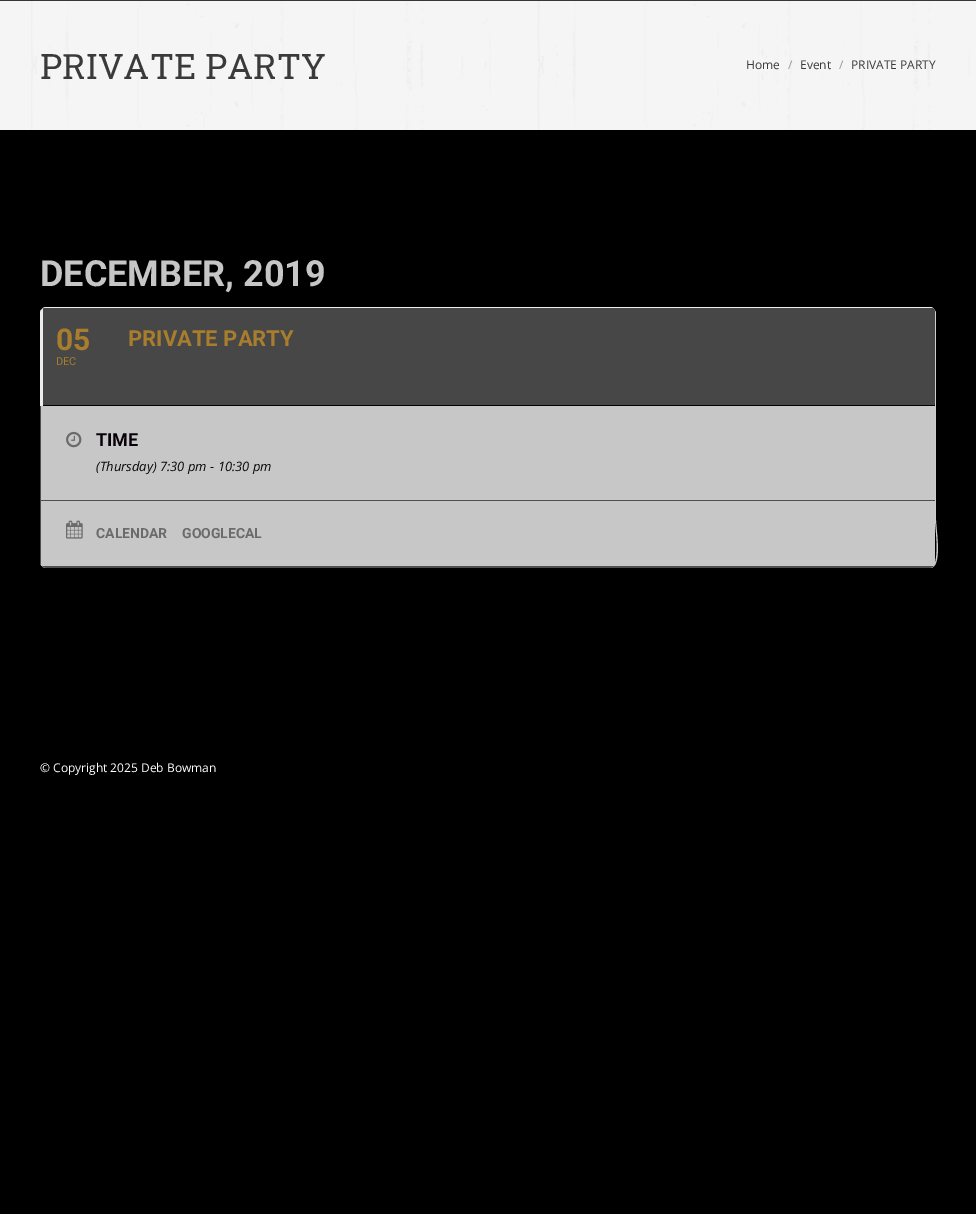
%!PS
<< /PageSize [976 1214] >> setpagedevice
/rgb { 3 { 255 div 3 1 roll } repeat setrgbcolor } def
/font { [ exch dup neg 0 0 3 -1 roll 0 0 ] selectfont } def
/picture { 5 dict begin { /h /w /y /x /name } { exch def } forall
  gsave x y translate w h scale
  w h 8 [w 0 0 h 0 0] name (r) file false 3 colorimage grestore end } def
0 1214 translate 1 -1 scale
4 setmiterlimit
0 0 0 rgb
0 0 976 1214 rectfill
55 55 55 rgb
0 0 976 1 rectfill
245 245 245 rgb
0 1 976 129 rectfill
(img/1.rgb) 31 1 940 129 picture
239 238 238 rgb
46 307 moveto 930 307 lineto 932 307 933 308 934 309 curveto 933 308 932 308 930 308 curveto 46 308 lineto 43 308 40 310 40 313 curveto 40 310 43 307 46 307 curveto closepath fill
205 205 205 rgb
934 309 moveto 935 312 lineto 935 520 lineto 935 525 941 568 930 568 curveto 943 568 936 529 936 520 curveto 936 312 lineto closepath fill
71 71 71 rgb
46 308 moveto 43 308 40 310 40 313 curveto 40 406 lineto 935 406 lineto 935 313 lineto 935 310 933 308 930 308 curveto closepath fill
236 236 236 rgb
43 309 moveto 41 310 40 311 40 313 curveto 40 406 lineto 43 406 lineto closepath fill
0 0 0 rgb
43 405 892 1 rectfill
199 199 199 rgb
40 406 moveto 40 562 lineto 40 565 43 568 46 568 curveto 930 568 lineto 933 568 935 565 935 562 curveto 935 406 lineto closepath fill
79 79 79 rgb
46 568 moveto 930 568 lineto 933 567 lineto 43 567 lineto closepath fill
40 406 moveto 40 562 lineto 40 563 40 564 41 565 curveto 41 406 lineto closepath fill
41 500 894 1 rectfill
(img/2.rgb) 66 431 16 17 picture
199 199 199 rgb
41 501 moveto 935 501 lineto 935 562 lineto 935 564 934 566 933 567 curveto 43 567 lineto 41 565 lineto closepath fill
79 79 79 rgb
43 567 moveto 42 566 lineto 934 566 lineto 933 567 lineto closepath fill
(img/3.rgb) 66 520 17 19 picture
/RobotoSlab-Regular 35 font
58 58 58 rgb
40 79 moveto (PRIVATE PARTY) show
/OpenSans-Regular 12 font
746 69 moveto (Home) show
150 150 150 rgb
788 69 moveto (/) show
58 58 58 rgb
800 69 moveto (Event) show
150 150 150 rgb
839 69 moveto (/) show
58 58 58 rgb
851 69 moveto (PRIVATE PARTY) show
/Roboto-Bold 36 font
198 198 198 rgb
40 286 moveto (DECEMBER, 2019) show
/Roboto-Bold 30 font
168 125 45 rgb
56 350 moveto (05) show
/Roboto-Regular 11 font
56 365 moveto (DEC) show
/Roboto-Bold 22 font
128 346 moveto (PRIVATE PARTY) show
/Roboto-Bold 18 font
8 1 8 rgb
96 446 moveto (TIME) show
/OpenSans-Italic 13 font
10 8 10 rgb
96 471 moveto (\(Thursday\) 7:30 pm - 10:30 pm) show
/Roboto-Bold 14 font
107 107 107 rgb
96 538 moveto (CALENDAR) show
182 538 moveto (GOOGLECAL) show
/OpenSans-Regular 12 font
255 255 255 rgb
40 772 moveto (© Copyright 2025 Deb Bowman) show
showpage
